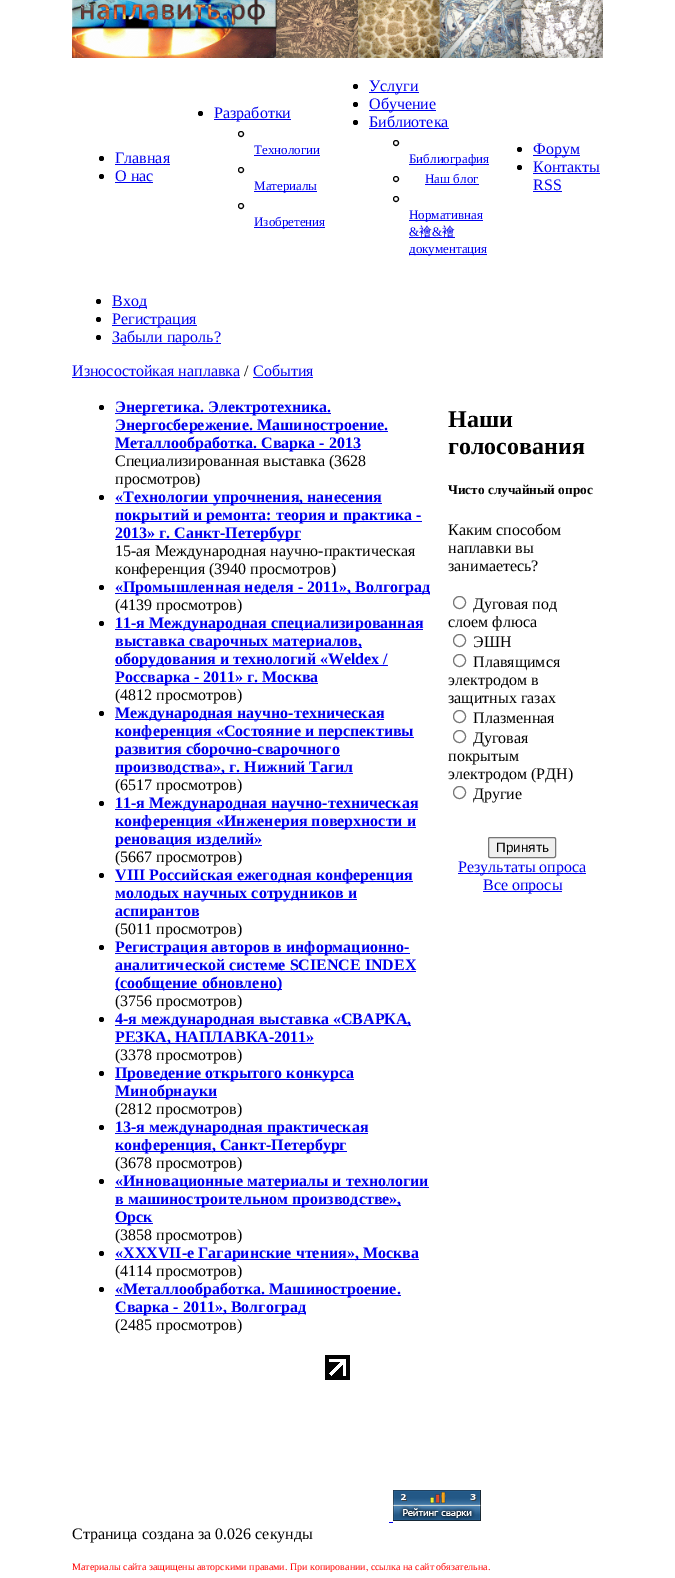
%!PS
<< /PageSize [675 1578] >> setpagedevice
/rgb { 3 { 255 div 3 1 roll } repeat setrgbcolor } def
/font { [ exch dup neg 0 0 3 -1 roll 0 0 ] selectfont } def
/circle { newpath 0 360 arc closepath } def
/roundrect { 5 dict begin { /r /h /w /y /x } { exch def } forall
  x r add y moveto x w add y 2 copy h add r arct x w add y h add x 1 index r arct
  x y h add x y r arct x y 2 copy exch w add exch r arct closepath end } def
/picture { 5 dict begin { /h /w /y /x /name } { exch def } forall
  gsave x y translate w h scale
  w h 8 [w 0 0 h 0 0] name (r) file false 3 colorimage grestore end } def
0 1578 translate 1 -1 scale
4 setmiterlimit
255 255 255 rgb
0 0 675 1578 rectfill
(img/1.rgb) 72 0 531 58 picture
0 0 0 rgb
101.5 158.5 2.5 circle fill
0 0 238 rgb
115 164 55 1 rectfill
0 0 0 rgb
101.5 176.5 2.5 circle fill
0 0 238 rgb
115 182 38 1 rectfill
0 0 0 rgb
200.5 113.5 2.5 circle fill
0 0 238 rgb
214 119 77 1 rectfill
0 0 0 rgb
241 134 2.5 circle stroke
0 0 238 rgb
254 155 66 1 rectfill
0 0 0 rgb
241 170 2.5 circle stroke
0 0 238 rgb
254 191 63 1 rectfill
0 0 0 rgb
241 206 2.5 circle stroke
0 0 238 rgb
254 227 71 1 rectfill
0 0 0 rgb
355.5 86.5 2.5 circle fill
0 0 238 rgb
369 92 50 1 rectfill
0 0 0 rgb
355.5 104.5 2.5 circle fill
0 0 238 rgb
369 110 67 1 rectfill
0 0 0 rgb
355.5 122.5 2.5 circle fill
0 0 238 rgb
369 128 80 1 rectfill
0 0 0 rgb
396 143 2.5 circle stroke
0 0 238 rgb
409 164 80 1 rectfill
0 0 0 rgb
396 179 2.5 circle stroke
0 0 238 rgb
425 184 54 1 rectfill
0 0 0 rgb
396 199 2.5 circle stroke
[
  [409 220 74 1 0 0 238]
  [409 237 46 1 0 0 238]
  [409 254 78 1 0 0 238]
] { aload pop rgb rectfill } forall
0 0 0 rgb
519.5 149.5 2.5 circle fill
0 0 238 rgb
533 155 47 1 rectfill
0 0 0 rgb
519.5 167.5 2.5 circle fill
0 0 238 rgb
533 173 67 1 rectfill
533 191 29 1 rectfill
0 0 0 rgb
98.5 301.5 2.5 circle fill
0 0 238 rgb
112 307 35 1 rectfill
0 0 0 rgb
98.5 319.5 2.5 circle fill
0 0 238 rgb
112 325 85 1 rectfill
0 0 0 rgb
98.5 337.5 2.5 circle fill
[
  [112 343 109 1 0 0 238]
  [72 377 168 1 0 0 238]
  [253 377 60 1 0 0 238]
] { aload pop rgb rectfill } forall
0 0 0 rgb
101.5 407.5 2.5 circle fill
[
  [115 413 216 1 0 0 238]
  [115 431 273 1 0 0 238]
  [115 449 246 1 0 0 238]
] { aload pop rgb rectfill } forall
0 0 0 rgb
101.5 497.5 2.5 circle fill
[
  [115 503 267 1 0 0 238]
  [115 521 307 1 0 0 238]
  [115 539 186 1 0 0 238]
] { aload pop rgb rectfill } forall
0 0 0 rgb
101.5 587.5 2.5 circle fill
0 0 238 rgb
115 593 315 1 rectfill
0 0 0 rgb
101.5 623.5 2.5 circle fill
[
  [115 629 308 1 0 0 238]
  [115 647 247 1 0 0 238]
  [115 665 273 1 0 0 238]
  [115 683 203 1 0 0 238]
] { aload pop rgb rectfill } forall
0 0 0 rgb
101.5 713.5 2.5 circle fill
[
  [115 719 269 1 0 0 238]
  [115 737 299 1 0 0 238]
  [115 755 225 1 0 0 238]
  [115 773 238 1 0 0 238]
] { aload pop rgb rectfill } forall
0 0 0 rgb
101.5 803.5 2.5 circle fill
[
  [115 809 303 1 0 0 238]
  [115 827 301 1 0 0 238]
  [115 845 147 1 0 0 238]
] { aload pop rgb rectfill } forall
0 0 0 rgb
101.5 875.5 2.5 circle fill
[
  [115 881 298 1 0 0 238]
  [115 899 242 1 0 0 238]
  [115 917 84 1 0 0 238]
] { aload pop rgb rectfill } forall
0 0 0 rgb
101.5 947.5 2.5 circle fill
[
  [115 953 295 1 0 0 238]
  [115 971 301 1 0 0 238]
  [115 989 167 1 0 0 238]
] { aload pop rgb rectfill } forall
0 0 0 rgb
101.5 1019.5 2.5 circle fill
0 0 238 rgb
115 1025 296 1 rectfill
115 1043 199 1 rectfill
0 0 0 rgb
101.5 1073.5 2.5 circle fill
0 0 238 rgb
115 1079 239 1 rectfill
115 1097 102 1 rectfill
0 0 0 rgb
101.5 1127.5 2.5 circle fill
0 0 238 rgb
115 1133 253 1 rectfill
115 1151 232 1 rectfill
0 0 0 rgb
101.5 1181.5 2.5 circle fill
[
  [115 1187 314 1 0 0 238]
  [115 1205 286 1 0 0 238]
  [115 1223 38 1 0 0 238]
] { aload pop rgb rectfill } forall
0 0 0 rgb
101.5 1253.5 2.5 circle fill
0 0 238 rgb
115 1259 304 1 rectfill
0 0 0 rgb
101.5 1289.5 2.5 circle fill
0 0 238 rgb
115 1295 286 1 rectfill
115 1313 191 1 rectfill
118 118 118 rgb
459.5 602.5 6 circle stroke
459.5 640.5 6 circle stroke
459.5 660.5 6 circle stroke
459.5 716.5 6 circle stroke
459.5 736.5 6 circle stroke
459.5 792.5 6 circle stroke
239 239 239 rgb
488.5 837.5 67 20 1.5 roundrect gsave fill grestore
118 118 118 rgb
stroke
0 0 238 rgb
458 873 128 1 rectfill
483 891 79 1 rectfill
(img/2.rgb) 325 1355 25 25 picture
(img/3.rgb) 393 1490 88 31 picture
389 1522 4 1 rectfill
/LiberationSerif-Regular 16 font
[
  [(Главная) 115 163]
  [(О нас) 115 181]
  [(Разработки) 214 118]
] { aload pop moveto show } forall
/LiberationSerif-Regular 13 font
[
  [(Технологии) 254 154]
  [(Материалы) 254 190]
  [(Изобретения) 254 226]
] { aload pop moveto show } forall
/LiberationSerif-Regular 16 font
[
  [(Услуги) 369 91]
  [(Обучение) 369 109]
  [(Библиотека) 369 127]
] { aload pop moveto show } forall
/LiberationSerif-Regular 13 font
[
  [(Библиография) 409 163]
  [(Наш блог) 425 183]
  [(Нормативная) 409 219]
  [(&) 409 236]
] { aload pop moveto show } forall
/WenQuanYiZenHei-Medium 13 font
419 236 moveto (襘) show
/LiberationSerif-Regular 13 font
432 236 moveto (&) show
/WenQuanYiZenHei-Medium 13 font
442 236 moveto (襘) show
/LiberationSerif-Regular 13 font
409 253 moveto (документация) show
/LiberationSerif-Regular 16 font
[
  [(Форум) 533 154]
  [(Контакты) 533 172]
  [(RSS) 533 190]
  [(Вход) 112 306]
  [(Регистрация) 112 324]
  [(Забыли пароль?) 112 342]
  [(Износостойкая наплавка) 72 376]
] { aload pop moveto show } forall
0 0 0 rgb
244 376 moveto (/) show
0 0 238 rgb
253 376 moveto (События) show
/LiberationSerif-Bold 16 font
[
  [(Энергетика. Электротехника.) 115 412]
  [(Энергосбережение. Машиностроение.) 115 430]
  [(Металлообработка. Сварка - 2013) 115 448]
] { aload pop moveto show } forall
/LiberationSerif-Regular 16 font
0 0 0 rgb
115 466 moveto (Специализированная выставка \(3628) show
115 484 moveto (просмотров\)) show
/LiberationSerif-Bold 16 font
0 0 238 rgb
[
  [(«Технологии упрочнения, нанесения) 115 502]
  [(покрытий и ремонта: теория и практика -) 115 520]
  [(2013» г. Санкт-Петербург) 115 538]
] { aload pop moveto show } forall
/LiberationSerif-Regular 16 font
0 0 0 rgb
115 556 moveto (15-ая Международная научно-практическая) show
115 574 moveto (конференция \(3940 просмотров\)) show
/LiberationSerif-Bold 16 font
0 0 238 rgb
115 592 moveto («Промышленная неделя - 2011», Волгоград) show
/LiberationSerif-Regular 16 font
0 0 0 rgb
115 610 moveto (\(4139 просмотров\)) show
/LiberationSerif-Bold 16 font
0 0 238 rgb
[
  [(11-я Международная специализированная) 115 628]
  [(выставка сварочных материалов,) 115 646]
  [(оборудования и технологий «Weldex /) 115 664]
  [(Россварка - 2011» г. Москва) 115 682]
] { aload pop moveto show } forall
/LiberationSerif-Regular 16 font
0 0 0 rgb
115 700 moveto (\(4812 просмотров\)) show
/LiberationSerif-Bold 16 font
0 0 238 rgb
[
  [(Международная научно-техническая) 115 718]
  [(конференция «Состояние и перспективы) 115 736]
  [(развития сборочно-сварочного) 115 754]
  [(производства», г. Нижний Тагил) 115 772]
] { aload pop moveto show } forall
/LiberationSerif-Regular 16 font
0 0 0 rgb
115 790 moveto (\(6517 просмотров\)) show
/LiberationSerif-Bold 16 font
0 0 238 rgb
[
  [(11-я Международная научно-техническая) 115 808]
  [(конференция «Инженерия поверхности и) 115 826]
  [(реновация изделий») 115 844]
] { aload pop moveto show } forall
/LiberationSerif-Regular 16 font
0 0 0 rgb
115 862 moveto (\(5667 просмотров\)) show
/LiberationSerif-Bold 16 font
0 0 238 rgb
[
  [(VIII Российская ежегодная конференция) 115 880]
  [(молодых научных сотрудников и) 115 898]
  [(аспирантов) 115 916]
] { aload pop moveto show } forall
/LiberationSerif-Regular 16 font
0 0 0 rgb
115 934 moveto (\(5011 просмотров\)) show
/LiberationSerif-Bold 16 font
0 0 238 rgb
[
  [(Регистрация авторов в информационно-) 115 952]
  [(аналитической системе SCIENCE INDEX) 115 970]
  [(\(сообщение обновлено\)) 115 988]
] { aload pop moveto show } forall
/LiberationSerif-Regular 16 font
0 0 0 rgb
115 1006 moveto (\(3756 просмотров\)) show
/LiberationSerif-Bold 16 font
0 0 238 rgb
115 1024 moveto (4-я международная выставка «СВАРКА,) show
115 1042 moveto (РЕЗКА, НАПЛАВКА-2011») show
/LiberationSerif-Regular 16 font
0 0 0 rgb
115 1060 moveto (\(3378 просмотров\)) show
/LiberationSerif-Bold 16 font
0 0 238 rgb
115 1078 moveto (Проведение открытого конкурса) show
115 1096 moveto (Минобрнауки) show
/LiberationSerif-Regular 16 font
0 0 0 rgb
115 1114 moveto (\(2812 просмотров\)) show
/LiberationSerif-Bold 16 font
0 0 238 rgb
115 1132 moveto (13-я международная практическая) show
115 1150 moveto (конференция, Санкт-Петербург) show
/LiberationSerif-Regular 16 font
0 0 0 rgb
115 1168 moveto (\(3678 просмотров\)) show
/LiberationSerif-Bold 16 font
0 0 238 rgb
[
  [(«Инновационные материалы и технологии) 115 1186]
  [(в машиностроительном производстве»,) 115 1204]
  [(Орск) 115 1222]
] { aload pop moveto show } forall
/LiberationSerif-Regular 16 font
0 0 0 rgb
115 1240 moveto (\(3858 просмотров\)) show
/LiberationSerif-Bold 16 font
0 0 238 rgb
115 1258 moveto («XXXVII-е Гагаринские чтения», Москва) show
/LiberationSerif-Regular 16 font
0 0 0 rgb
115 1276 moveto (\(4114 просмотров\)) show
/LiberationSerif-Bold 16 font
0 0 238 rgb
115 1294 moveto («Металлообработка. Машиностроение.) show
115 1312 moveto (Сварка - 2011», Волгоград) show
/LiberationSerif-Regular 16 font
0 0 0 rgb
115 1330 moveto (\(2485 просмотров\)) show
/LiberationSerif-Bold 24 font
448 427 moveto (Наши) show
448 454 moveto (голосования) show
/LiberationSerif-Bold 13.25 font
448 494 moveto (Чисто случайный опрос) show
/LiberationSerif-Regular 16 font
[
  [(Каким способом) 448 535]
  [(наплавки вы) 448 553]
  [(занимаетесь?) 448 571]
  [(Дуговая под) 473 609]
  [(слоем флюса) 448 627]
  [(ЭШН) 473 647]
  [(Плавящимся) 473 667]
  [(электродом в) 448 685]
  [(защитных газах) 448 703]
  [(Плазменная) 473 723]
  [(Дуговая) 473 743]
  [(покрытым) 448 761]
  [(электродом \(РДН\)) 448 779]
  [(Другие) 473 799]
] { aload pop moveto show } forall
/LiberationSans-Regular 13.5 font
496 852 moveto (Принять) show
/LiberationSerif-Regular 16 font
0 0 238 rgb
458 872 moveto (Результаты опроса) show
483 890 moveto (Все опросы) show
0 0 0 rgb
72 1539 moveto (Страница создана за 0.026 секунды) show
/LiberationSerif-Regular 10 font
255 0 0 rgb
72 1570 moveto (Материалы сайта защищены авторскими правами. При копировании, ссылка на сайт обязательна.) show
showpage
